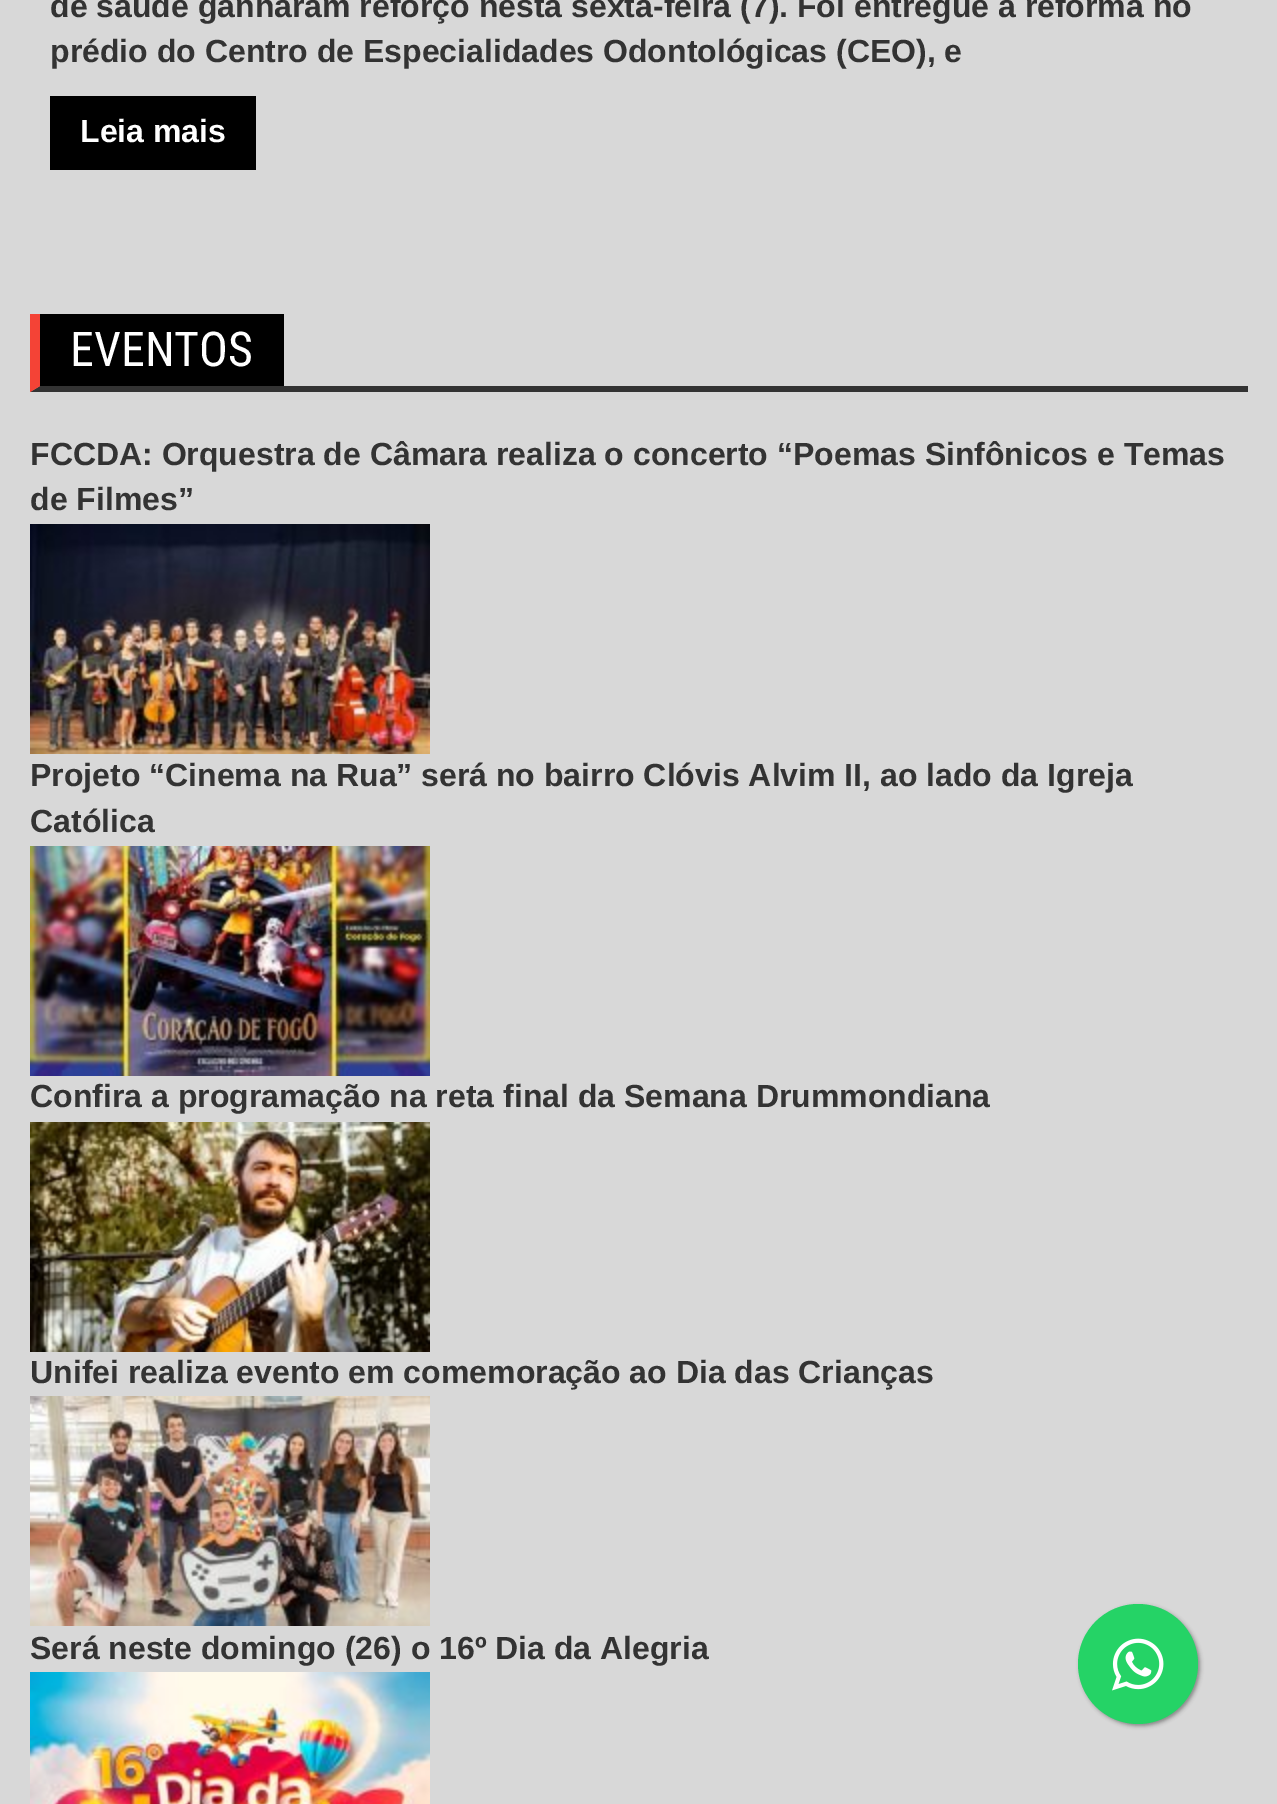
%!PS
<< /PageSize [1277 1804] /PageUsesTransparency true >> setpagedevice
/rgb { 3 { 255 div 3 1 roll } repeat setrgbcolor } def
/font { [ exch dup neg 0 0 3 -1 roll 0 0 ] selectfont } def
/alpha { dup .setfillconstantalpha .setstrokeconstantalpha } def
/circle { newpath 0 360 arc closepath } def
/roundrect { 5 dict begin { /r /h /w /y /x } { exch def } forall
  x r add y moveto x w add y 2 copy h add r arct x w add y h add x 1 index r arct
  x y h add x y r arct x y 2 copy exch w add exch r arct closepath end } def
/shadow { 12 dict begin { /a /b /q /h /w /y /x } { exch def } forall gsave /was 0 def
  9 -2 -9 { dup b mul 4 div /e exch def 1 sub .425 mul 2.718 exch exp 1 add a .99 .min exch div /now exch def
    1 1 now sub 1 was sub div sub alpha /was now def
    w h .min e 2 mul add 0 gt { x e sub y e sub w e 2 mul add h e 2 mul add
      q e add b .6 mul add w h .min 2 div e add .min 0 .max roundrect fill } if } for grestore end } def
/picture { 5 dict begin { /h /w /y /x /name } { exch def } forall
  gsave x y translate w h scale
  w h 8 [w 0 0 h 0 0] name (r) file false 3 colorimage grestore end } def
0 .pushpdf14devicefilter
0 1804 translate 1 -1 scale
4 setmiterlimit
216 216 216 rgb
0 0 1277 1804 rectfill
0 0 0 rgb
50 96 206 74 rectfill
51 51 51 rgb
1248 392 moveto 30 392 lineto 40 386 lineto 1248 386 lineto closepath fill
244 67 54 rgb
30 392 moveto 30 314 lineto 40 314 lineto 40 386 lineto closepath fill
0 0 0 rgb
40 314 244 72 rectfill
(img/1.rgb) 30 524 400 230 picture
(img/2.rgb) 30 846 400 230 picture
(img/3.rgb) 30 1122 400 230 picture
(img/4.rgb) 30 1396 400 230 picture
(img/5.rgb) 30 1672 400 132 picture
136 136 136 rgb
1080 1606 120 120 60 2 1 shadow
37 211 102 rgb
1138 1664 60 circle fill
(img/6.rgb) 1112 1638 52 53 picture
/LiberationSans-Bold 32 font
51 51 51 rgb
50 17 moveto (de saúde ganharam reforço nesta sexta-feira \(7\). Foi entregue a reforma no) show
50 62 moveto (prédio do Centro de Especialidades Odontológicas \(CEO\), e) show
255 255 255 rgb
80 142 moveto (Leia mais) show
/RobotoCondensed-Regular 48 font
70 366 moveto (EVENTOS) show
/LiberationSans-Bold 32 font
51 51 51 rgb
[
  [(FCCDA: Orquestra de Câmara realiza o concerto “Poemas Sinfônicos e Temas) 30 465]
  [(de Filmes”) 30 510]
  [(Projeto “Cinema na Rua” será no bairro Clóvis Alvim II, ao lado da Igreja) 30 786]
  [(Católica) 30 832]
  [(Confira a programação na reta final da Semana Drummondiana) 30 1107]
  [(Unifei realiza evento em comemoração ao Dia das Crianças) 30 1383]
  [(Será neste domingo \(26\) o 16º Dia da Alegria) 30 1659]
] { aload pop moveto show } forall
.poppdf14devicefilter showpage
